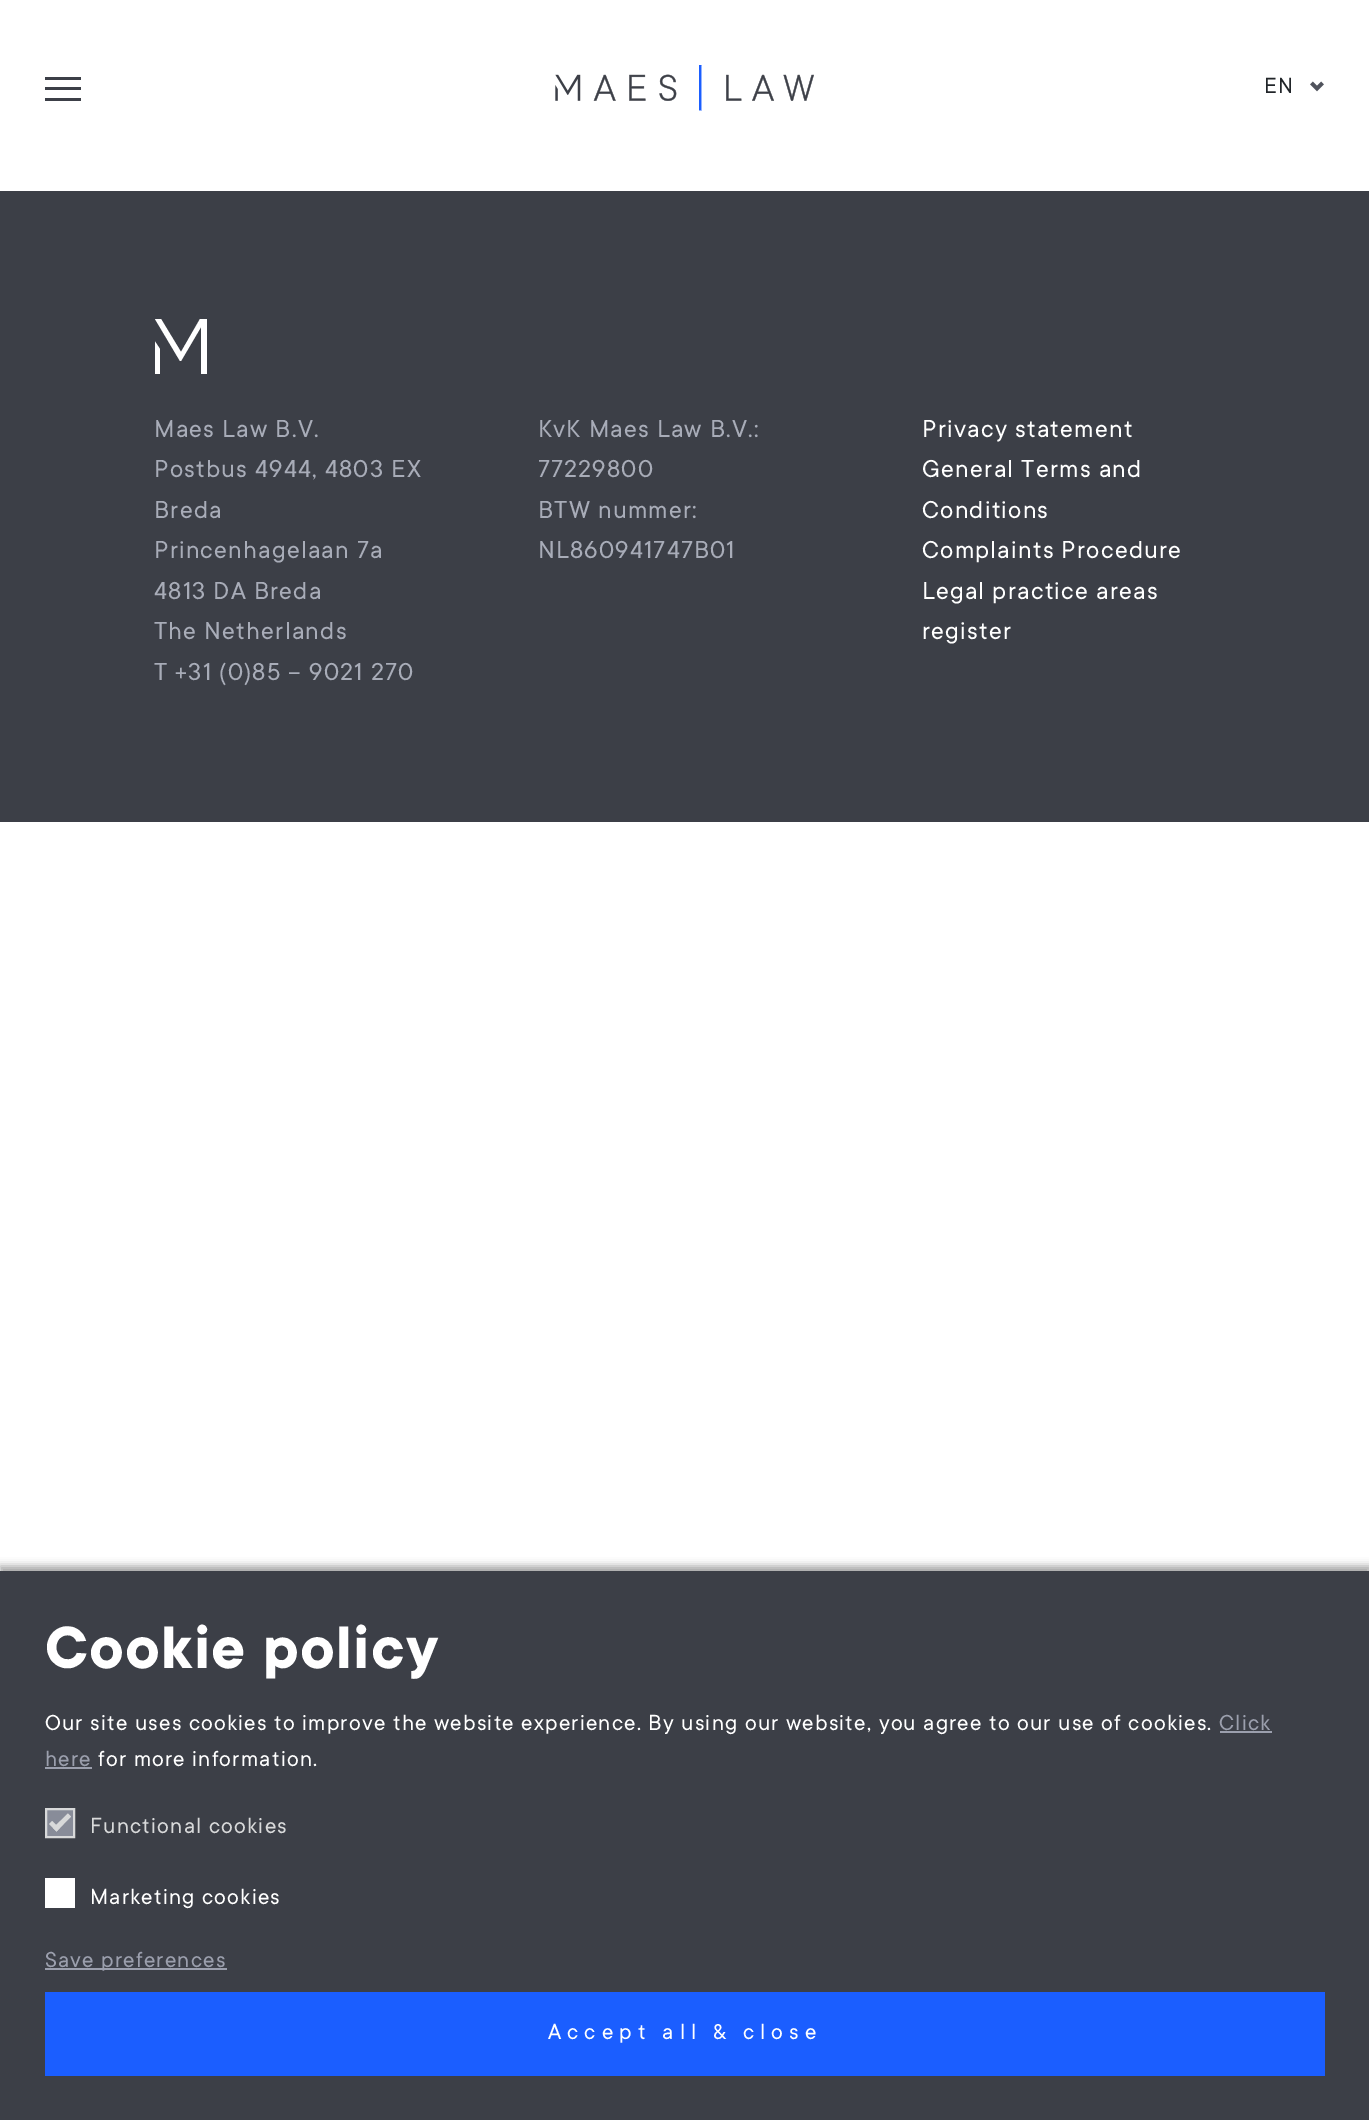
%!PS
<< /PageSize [1369 2120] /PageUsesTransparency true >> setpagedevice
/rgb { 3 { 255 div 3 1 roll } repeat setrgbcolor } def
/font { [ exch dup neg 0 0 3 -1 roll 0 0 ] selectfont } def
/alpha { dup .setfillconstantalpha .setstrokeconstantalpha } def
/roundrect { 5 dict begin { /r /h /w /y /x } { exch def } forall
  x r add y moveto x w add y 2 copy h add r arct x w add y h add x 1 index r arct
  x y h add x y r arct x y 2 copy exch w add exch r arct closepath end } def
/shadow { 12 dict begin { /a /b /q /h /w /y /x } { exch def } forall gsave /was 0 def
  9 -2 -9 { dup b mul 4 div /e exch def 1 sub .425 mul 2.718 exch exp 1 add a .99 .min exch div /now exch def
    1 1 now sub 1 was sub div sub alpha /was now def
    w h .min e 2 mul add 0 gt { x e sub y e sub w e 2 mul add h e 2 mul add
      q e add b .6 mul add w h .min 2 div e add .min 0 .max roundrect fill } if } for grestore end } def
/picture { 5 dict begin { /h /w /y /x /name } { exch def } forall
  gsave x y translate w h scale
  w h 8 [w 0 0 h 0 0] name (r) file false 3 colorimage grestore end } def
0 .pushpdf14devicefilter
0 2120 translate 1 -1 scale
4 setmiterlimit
255 255 255 rgb
0 0 1369 2120 rectfill
[
  [45 77 36 3 60 63 71]
  [45 87 36 3 60 63 71]
  [45 98 36 3 60 63 71]
] { aload pop rgb rectfill } forall
(img/1.rgb) 555 65 259 46 picture
80 83 92 rgb
3.8 setlinewidth
1311.5 83 moveto 1317 88.5 lineto 1322.5 83 lineto stroke
60 63 71 rgb
0 191 1369 631 rectfill
gsave
155 318 52 57 rectclip
255 255 255 rgb
200 319 moveto 181 352 lineto 161 319 lineto 155 319 lineto 180 361 lineto 181 361 lineto 201 327 lineto 201 374 lineto 207 374 lineto 207 319 lineto closepath 154 374 moveto 160 374 lineto 160 349 lineto 154 340 lineto closepath eofill
grestore
0 0 0 rgb
0 1566 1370 551 0 4 0.36 shadow
[
  [0 1571 1369 549 60 63 71]
  [1220 1731 52 2 155 159 173]
  [45 1767 47 2 155 159 173]
] { aload pop rgb rectfill } forall
136 140 153 rgb
46 1809 moveto 74 1809 lineto 74 1837 lineto 46 1837 lineto closepath gsave fill grestore
216 217 218 rgb
2 setlinewidth
stroke
53 1828 moveto 68 1813.5 lineto 71 1816.5 lineto 56.5 1831.5 lineto closepath fill
49 1824 moveto 52 1821 lineto 59.5 1828 lineto 56.5 1831.5 lineto closepath fill
[
  [45 1878 30 30 255 255 255]
  [45 1968 182 2 155 159 173]
  [45 1992 1280 84 27 94 255]
] { aload pop rgb rectfill } forall
/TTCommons-Regular 24 font
33 37 41 rgb
1264 93 moveto 1.2 0 (EN) ashow
/TTCommons-Regular 27 font
168 172 184 rgb
154 437 moveto 1.2 0 (Maes Law B.V.) ashow
154 477 moveto 1.2 0 (Postbus 4944, 4803 EX) ashow
154 518 moveto 1.2 0 (Breda) ashow
154 558 moveto 1.2 0 (Princenhagelaan 7a) ashow
154 599 moveto 1.2 0 (4813 DA Breda) ashow
154 639 moveto 1.2 0 (The Netherlands) ashow
154 680 moveto 1.2 0 (T +31 \(0\)85 – 9021 270) ashow
538 437 moveto 1.2 0 (KvK Maes Law B.V.:) ashow
538 477 moveto 1.2 0 (77229800) ashow
538 518 moveto 1.2 0 (BTW nummer:) ashow
538 558 moveto 1.2 0 (NL860941747B01) ashow
255 255 255 rgb
922 437 moveto 1.2 0 (Privacy statement) ashow
922 477 moveto 1.2 0 (General Terms and) ashow
922 518 moveto 1.2 0 (Conditions) ashow
922 558 moveto 1.2 0 (Complaints Procedure) ashow
922 599 moveto 1.2 0 (Legal practice areas) ashow
922 639 moveto 1.2 0 (register) ashow
/TTCommons-Bold 66 font
45 1668 moveto 1.2 0 (Cookie policy) ashow
/TTCommons-Regular 24 font
45 1730 moveto 1.2 0 (Our site uses cookies to improve the website experience. By using our website, you agree to our use of cookies.) ashow
155 159 173 rgb
1219 1730 moveto 1.2 0 (Click) ashow
45 1766 moveto 1.2 0 (here) ashow
255 255 255 rgb
98 1766 moveto 1.2 0 (for more information.) ashow
216 217 218 rgb
90 1833 moveto 1.2 0 (Functional cookies) ashow
255 255 255 rgb
90 1904 moveto 1.2 0 (Marketing cookies) ashow
155 159 173 rgb
45 1967 moveto 1.2 0 (Save preferences) ashow
255 255 255 rgb
548 2039 moveto 6 0 (Accept all & close) ashow
.poppdf14devicefilter showpage
